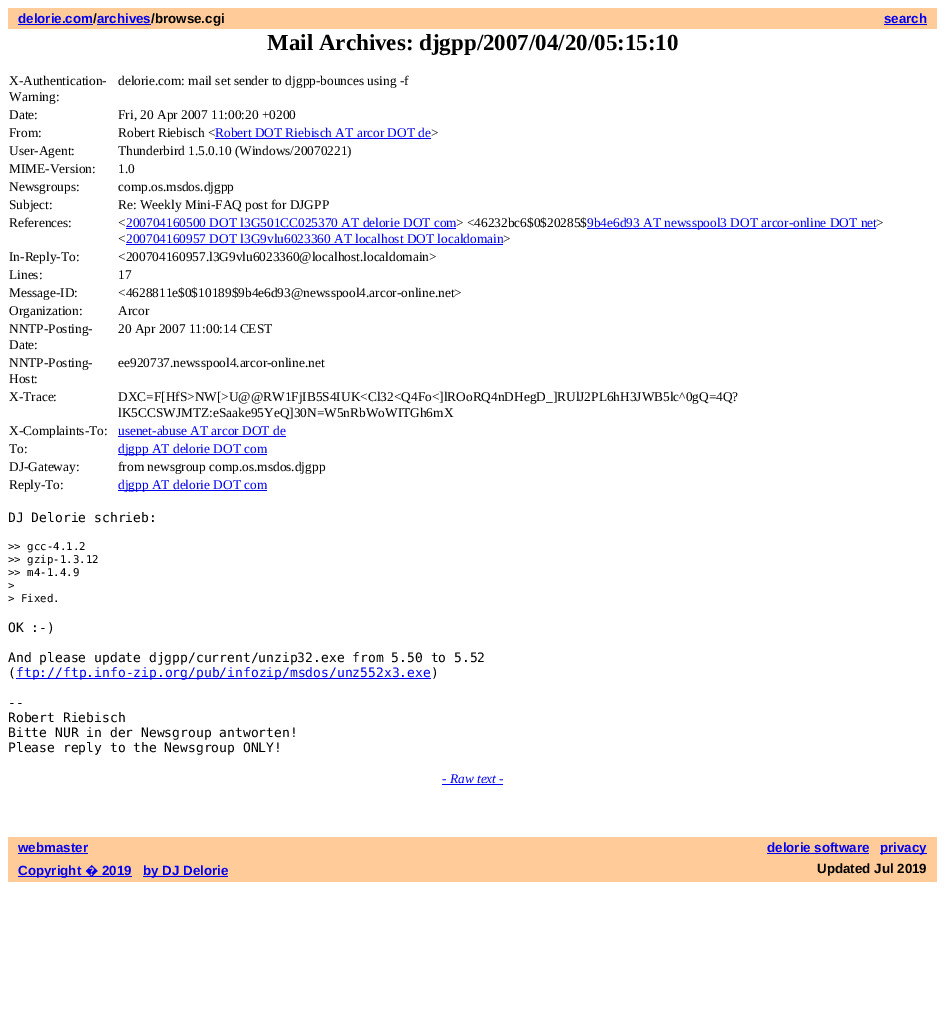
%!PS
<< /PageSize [945 1029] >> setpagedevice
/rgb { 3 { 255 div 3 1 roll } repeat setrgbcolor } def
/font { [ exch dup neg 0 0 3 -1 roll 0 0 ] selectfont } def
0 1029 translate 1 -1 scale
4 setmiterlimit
255 255 255 rgb
0 0 945 1029 rectfill
[
  [8 8 929 21 255 204 153]
  [18 24 75 1 0 0 238]
  [97 24 54 1 0 0 238]
  [884 24 43 1 0 0 238]
  [215 138 216 1 0 0 238]
  [126 228 330 1 0 0 238]
  [587 228 289 1 0 0 238]
  [126 244 377 1 0 0 238]
  [118 436 168 1 0 0 238]
  [118 454 149 1 0 0 238]
  [118 490 149 1 0 0 238]
  [16 678 415 1 0 0 238]
  [442 784 61 1 0 0 238]
  [8 837 929 21 255 204 153]
  [18 853 70 1 0 0 238]
  [767 853 102 1 0 0 238]
  [880 853 47 1 0 0 238]
  [8 858 929 24 255 204 153]
  [18 876 114 1 0 0 238]
  [143 876 85 1 0 0 238]
] { aload pop rgb rectfill } forall
/LiberationSans-Bold 13.35 font
18 23 moveto (delorie.com archives) show
0 0 0 rgb
93 23 moveto (/) show
151 23 moveto (/browse.cgi) show
0 0 238 rgb
884 23 moveto (search) show
/LiberationSerif-Bold 23 font
0 0 0 rgb
267 50 moveto (Mail Archives: djgpp/2007/04/20/05:15:10) show
/LiberationSerif-Regular 13.35 font
[
  [(X-Authentication-) 9 85]
  [(Warning:) 9 101]
  [(delorie.com: mail set sender to djgpp-bounces using -f) 118 85]
  [(Date:) 9 119]
  [(Fri, 20 Apr 2007 11:00:20 +0200) 118 119]
  [(From:) 9 137]
  [(Robert Riebisch <) 118 137]
] { aload pop moveto show } forall
0 0 238 rgb
215 137 moveto (Robert DOT Riebisch AT arcor DOT de) show
0 0 0 rgb
[
  [(>) 431 137]
  [(User-Agent:) 9 155]
  [(Thunderbird 1.5.0.10 \(Windows/20070221\)) 118 155]
  [(MIME-Version:) 9 173]
  [(1.0) 118 173]
  [(Newsgroups:) 9 191]
  [(comp.os.msdos.djgpp) 118 191]
  [(Subject:) 9 209]
  [(Re: Weekly Mini-FAQ post for DJGPP) 118 209]
  [(References:) 9 227]
  [(<) 118 227]
] { aload pop moveto show } forall
0 0 238 rgb
126 227 moveto (200704160500 DOT l3G501CC025370 AT delorie DOT com) show
0 0 0 rgb
456 227 moveto (> <46232bc6$0$20285$) show
0 0 238 rgb
587 227 moveto (9b4e6d93 AT newsspool3 DOT arcor-online DOT net) show
0 0 0 rgb
876 227 moveto (>) show
118 243 moveto (<) show
0 0 238 rgb
126 243 moveto (200704160957 DOT l3G9vlu6023360 AT localhost DOT localdomain) show
0 0 0 rgb
[
  [(>) 503 243]
  [(In-Reply-To:) 9 261]
  [(<200704160957.l3G9vlu6023360@localhost.localdomain>) 118 261]
  [(Lines:) 9 279]
  [(17) 118 279]
  [(Message-ID:) 9 297]
  [(<4628811e$0$10189$9b4e6d93@newsspool4.arcor-online.net>) 118 297]
  [(Organization:) 9 315]
  [(Arcor) 118 315]
  [(NNTP-Posting-) 9 333]
  [(Date:) 9 349]
  [(20 Apr 2007 11:00:14 CEST) 118 333]
  [(NNTP-Posting-) 9 367]
  [(Host:) 9 383]
  [(ee920737.newsspool4.arcor-online.net) 118 367]
  [(X-Trace:) 9 401]
  [(DXC=F[HfS>NW[>U@@RW1FjIB5S4IUK<Cl32<Q4Fo<]lROoRQ4nDHegD_]RUlJ2PL6hH3JWB5lc^0gQ=4Q?) 118 401]
  [(lK5CCSWJMTZ:eSaake95YeQ]30N=W5nRbWoWITGh6mX) 118 417]
  [(X-Complaints-To:) 9 435]
] { aload pop moveto show } forall
0 0 238 rgb
118 435 moveto (usenet-abuse AT arcor DOT de) show
0 0 0 rgb
9 453 moveto (To:) show
0 0 238 rgb
118 453 moveto (djgpp AT delorie DOT com) show
0 0 0 rgb
[
  [(DJ-Gateway:) 9 471]
  [(from newsgroup comp.os.msdos.djgpp) 118 471]
  [(Reply-To:) 9 489]
] { aload pop moveto show } forall
0 0 238 rgb
118 489 moveto (djgpp AT delorie DOT com) show
/DejaVuSansMono-Regular 13 font
0 0 0 rgb
8 522 moveto (DJ Delorie schrieb:) show
/DejaVuSansMono-Regular 10.75 font
[
  [(>> gcc-4.1.2) 8 550]
  [(>> gzip-1.3.12) 8 563]
  [(>> m4-1.4.9) 8 576]
  [(>) 8 589]
  [(> Fixed.) 8 602]
] { aload pop moveto show } forall
/DejaVuSansMono-Regular 13 font
[
  [(OK :-\)) 8 632]
  [(And please update djgpp/current/unzip32.exe from 5.50 to 5.52) 8 662]
  [(\() 8 677]
] { aload pop moveto show } forall
0 0 238 rgb
16 677 moveto (ftp://ftp.info-zip.org/pub/infozip/msdos/unz552x3.exe) show
0 0 0 rgb
[
  [(\)) 431 677]
  [(--) 8 707]
  [(Robert Riebisch) 8 722]
  [(Bitte NUR in der Newsgroup antworten!) 8 737]
  [(Please reply to the Newsgroup ONLY!) 8 752]
] { aload pop moveto show } forall
/LiberationSerif-Italic 13.35 font
0 0 238 rgb
442 783 moveto (- Raw text -) show
/LiberationSans-Bold 13.35 font
[
  [(webmaster) 18 852]
  [(delorie software) 767 852]
  [(privacy) 880 852]
  [(Copyright) 18 875]
] { aload pop moveto show } forall
/NotoSans-Bold 13.35 font
85 875 moveto (�) show
/LiberationSans-Bold 13.35 font
102 875 moveto (2019) show
143 875 moveto (by DJ Delorie) show
0 0 0 rgb
817 873 moveto (Updated Jul 2019) show
showpage
